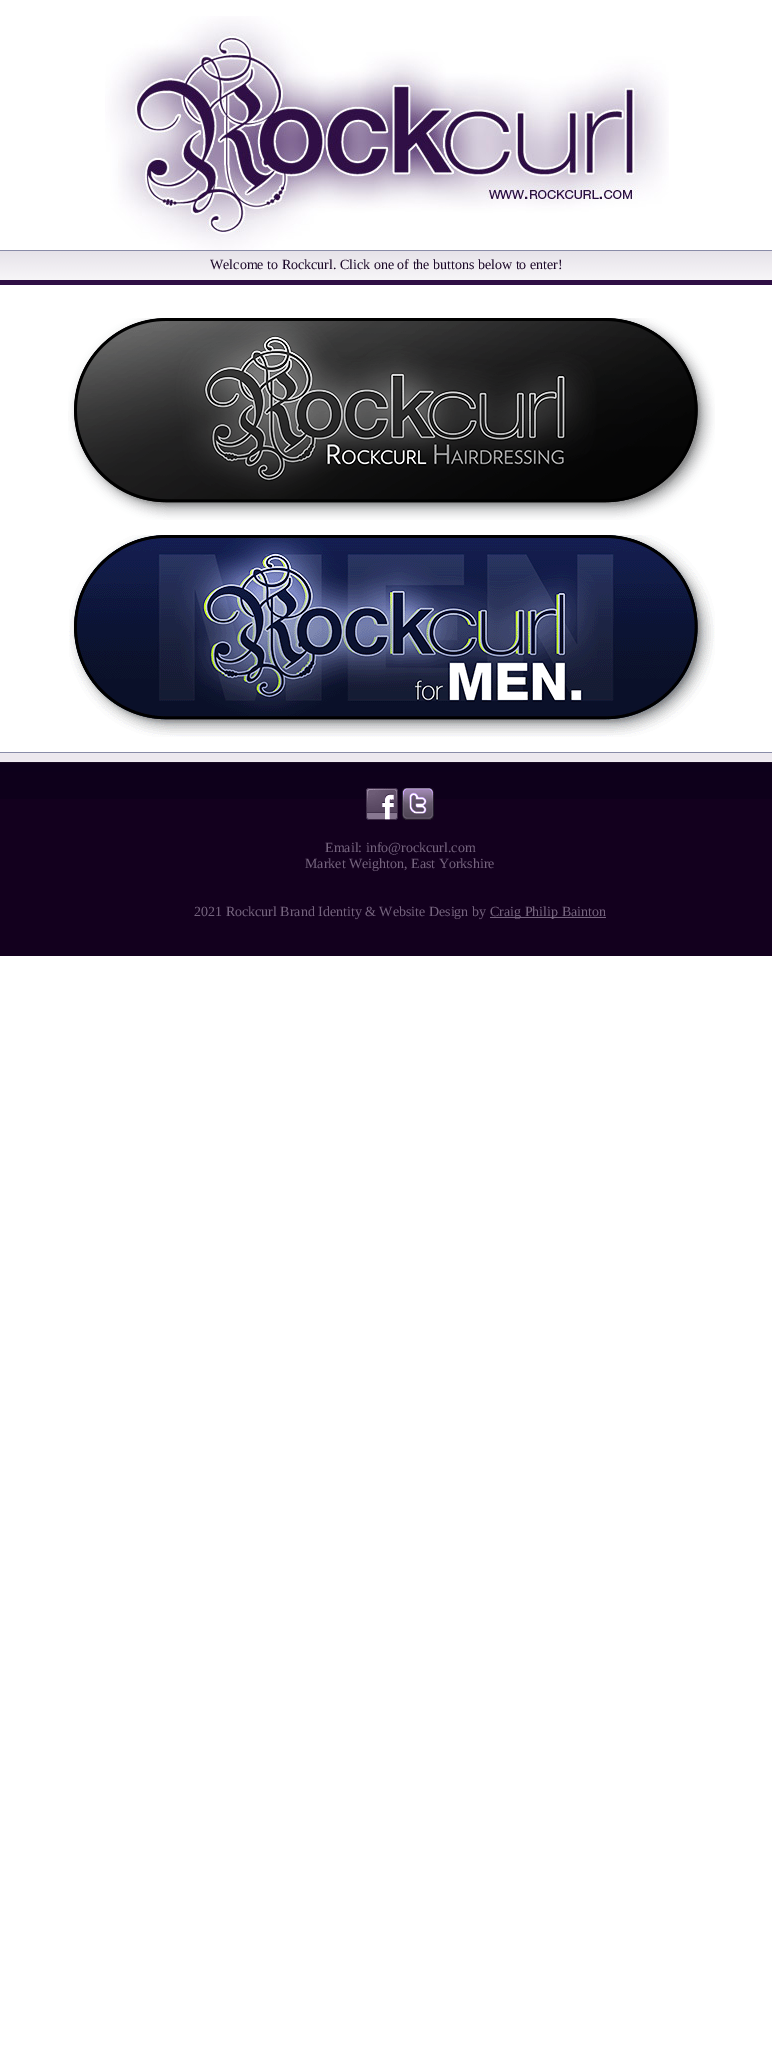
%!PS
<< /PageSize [772 2055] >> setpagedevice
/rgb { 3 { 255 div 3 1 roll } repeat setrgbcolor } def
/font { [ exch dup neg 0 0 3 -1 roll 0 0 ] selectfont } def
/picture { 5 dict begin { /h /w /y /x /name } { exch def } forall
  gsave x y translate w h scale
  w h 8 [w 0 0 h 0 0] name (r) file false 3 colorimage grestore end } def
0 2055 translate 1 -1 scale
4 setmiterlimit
255 255 255 rgb
0 0 772 2055 rectfill
(img/1.rgb) 0 250 772 35 picture
(img/2.rgb) 105 16 564 234 picture
(img/3.rgb) 68 318 647 202 picture
(img/4.rgb) 69 535 646 202 picture
19 0 30 rgb
0 799 772 157 rectfill
(img/5.rgb) 0 752 772 47 picture
(img/6.rgb) 366 788 32 32 picture
(img/7.rgb) 402 788 32 32 picture
117 100 126 rgb
490 917 116 1 rectfill
/LiberationSerif-Regular 14 font
28 9 41 rgb
210 269 moveto (Welcome to Rockcurl. Click one of the buttons below to enter!) show
117 100 126 rgb
[
  [(Email: info@rockcurl.com) 325 852]
  [(Market Weighton, East Yorkshire) 305 868]
  [(2021 Rockcurl Brand Identity & Website Design by) 194 916]
  [(Craig Philip Bainton) 490 916]
] { aload pop moveto show } forall
showpage
